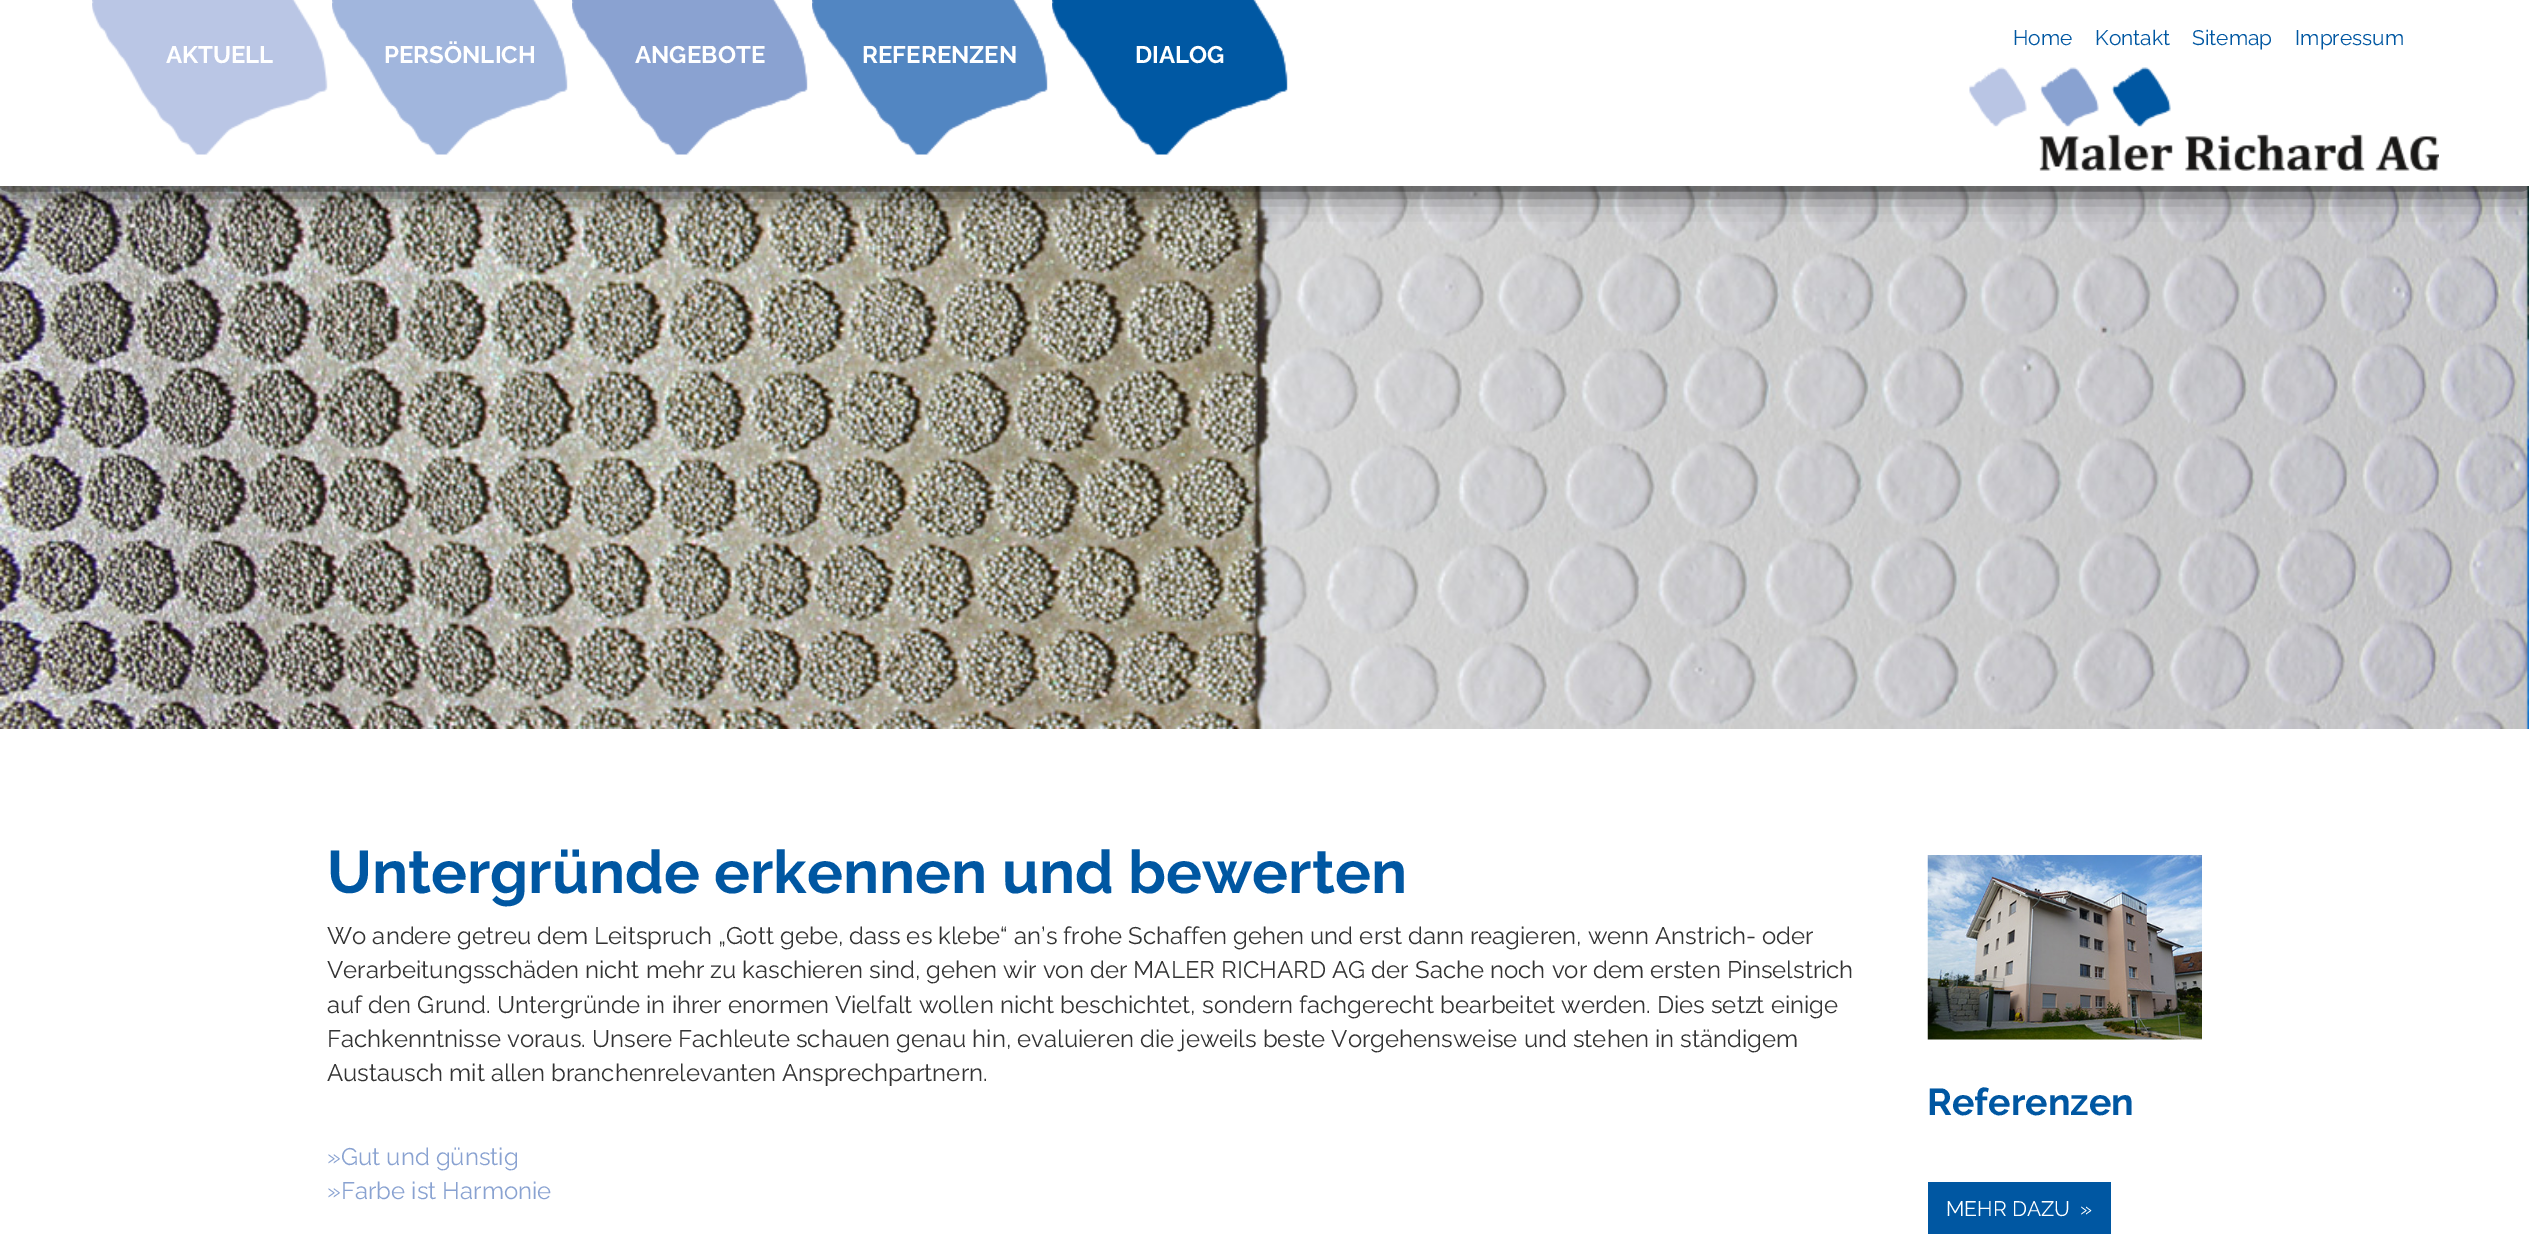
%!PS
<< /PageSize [2529 1234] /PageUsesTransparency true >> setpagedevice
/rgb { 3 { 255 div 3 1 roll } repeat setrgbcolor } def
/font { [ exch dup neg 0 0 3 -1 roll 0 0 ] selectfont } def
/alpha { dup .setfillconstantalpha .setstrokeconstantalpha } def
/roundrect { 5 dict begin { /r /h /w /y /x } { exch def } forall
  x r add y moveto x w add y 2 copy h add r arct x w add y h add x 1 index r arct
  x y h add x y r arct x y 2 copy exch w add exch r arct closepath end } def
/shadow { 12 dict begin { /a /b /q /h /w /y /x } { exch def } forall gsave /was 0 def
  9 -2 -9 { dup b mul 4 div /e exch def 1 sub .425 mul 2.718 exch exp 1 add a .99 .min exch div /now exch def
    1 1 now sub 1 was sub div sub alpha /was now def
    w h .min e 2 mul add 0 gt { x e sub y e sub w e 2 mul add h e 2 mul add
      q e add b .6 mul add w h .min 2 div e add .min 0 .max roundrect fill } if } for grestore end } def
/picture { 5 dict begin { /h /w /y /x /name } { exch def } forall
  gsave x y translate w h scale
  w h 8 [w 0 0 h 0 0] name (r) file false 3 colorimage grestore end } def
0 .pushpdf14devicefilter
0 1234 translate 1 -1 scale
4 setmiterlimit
255 255 255 rgb
0 0 2529 1234 rectfill
(img/7.rgb) 0 186 2529 543 picture
0 0 0 rgb
0 2 2529 186 0 15 1 shadow
255 255 255 rgb
0 0 2529 186 rectfill
(img/1.rgb) 92 0 236 155 picture
(img/2.rgb) 332 0 236 155 picture
(img/3.rgb) 572 0 236 155 picture
(img/4.rgb) 812 0 236 155 picture
(img/5.rgb) 1052 0 236 155 picture
(img/6.rgb) 1969 67 470 104 picture
(img/8.rgb) 1927 855 275 185 picture
0 87 162 rgb
1928 1182 183 52 rectfill
/Raleway-Bold 24 font
255 255 255 rgb
[
  [(AKTUELL) 166 63]
  [(PERSÖNLICH) 384 63]
  [(ANGEBOTE) 635 63]
  [(REFERENZEN) 862 63]
  [(DIALOG) 1135 63]
] { aload pop moveto show } forall
/Raleway-Regular 21 font
0 87 162 rgb
[
  [(Home) 2013 45]
  [(Kontakt) 2095 45]
  [(Sitemap) 2192 45]
  [(Impressum) 2295 45]
] { aload pop moveto show } forall
/Raleway-Bold 60 font
327 893 moveto (Untergründe erkennen und bewerten) show
/Raleway-Regular 24 font
51 51 51 rgb
[
  [(Wo andere getreu dem Leitspruch „Gott gebe, dass es klebe“ an’s frohe Schaffen gehen und erst dann reagieren, wenn Anstrich- oder) 327 944]
  [(Verarbeitungsschäden nicht mehr zu kaschieren sind, gehen wir von der MALER RICHARD AG der Sache noch vor dem ersten Pinselstrich) 327 978]
  [(auf den Grund. Untergründe in ihrer enormen Vielfalt wollen nicht beschichtet, sondern fachgerecht bearbeitet werden. Dies setzt einige) 327 1013]
  [(Fachkenntnisse voraus. Unsere Fachleute schauen genau hin, evaluieren die jeweils beste Vorgehensweise und stehen in ständigem) 327 1047]
  [(Austausch mit allen branchenrelevanten Ansprechpartnern.) 327 1081]
] { aload pop moveto show } forall
137 162 209 rgb
327 1165 moveto (»Gut und günstig) show
327 1199 moveto (»Farbe ist Harmonie) show
/Raleway-Bold 37.5 font
0 87 162 rgb
1927 1115 moveto (Referenzen) show
/Raleway-Regular 21 font
255 255 255 rgb
1946 1216 moveto (MEHR DAZU) show
2080 1216 moveto (») show
.poppdf14devicefilter showpage
